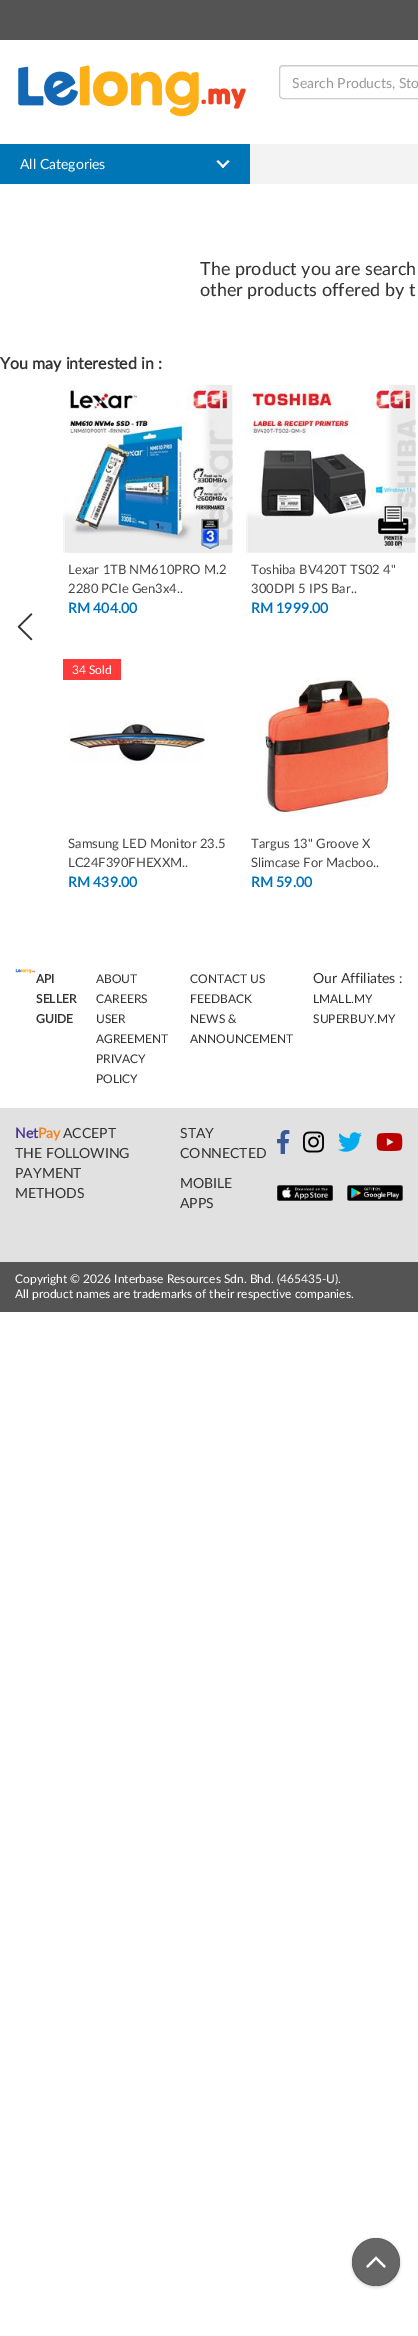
%!PS
<< /PageSize [418 2336] /PageUsesTransparency true >> setpagedevice
/rgb { 3 { 255 div 3 1 roll } repeat setrgbcolor } def
/font { [ exch dup neg 0 0 3 -1 roll 0 0 ] selectfont } def
/alpha { dup .setfillconstantalpha .setstrokeconstantalpha } def
/circle { newpath 0 360 arc closepath } def
/roundrect { 5 dict begin { /r /h /w /y /x } { exch def } forall
  x r add y moveto x w add y 2 copy h add r arct x w add y h add x 1 index r arct
  x y h add x y r arct x y 2 copy exch w add exch r arct closepath end } def
/shadow { 12 dict begin { /a /b /q /h /w /y /x } { exch def } forall gsave /was 0 def
  9 -2 -9 { dup b mul 4 div /e exch def 1 sub .425 mul 2.718 exch exp 1 add a .99 .min exch div /now exch def
    1 1 now sub 1 was sub div sub alpha /was now def
    w h .min e 2 mul add 0 gt { x e sub y e sub w e 2 mul add h e 2 mul add
      q e add b .6 mul add w h .min 2 div e add .min 0 .max roundrect fill } if } for grestore end } def
/picture { 5 dict begin { /h /w /y /x /name } { exch def } forall
  gsave x y translate w h scale
  w h 8 [w 0 0 h 0 0] name (r) file false 3 colorimage grestore end } def
0 .pushpdf14devicefilter
0 2336 translate 1 -1 scale
4 setmiterlimit
255 255 255 rgb
0 0 418 2336 rectfill
84 84 84 rgb
0 0 418 40 rectfill
(img/1.rgb) 18 65 228 52 picture
236 236 236 rgb
283 67 moveto 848 67 lineto 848 66 lineto 283 66 lineto 281 66 280 67 280 69 curveto 280 70 lineto 280 68 281 67 283 67 curveto closepath fill
204 204 204 rgb
283 65.5 moveto 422.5 65.5 lineto 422.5 98.5 lineto 283 98.5 lineto 281 98.5 279.5 97 279.5 95 curveto 279.5 69 lineto 279.5 67 281 65.5 283 65.5 curveto closepath stroke
243 243 243 rgb
250 144 168 40 rectfill
0 118 182 rgb
0 144 250 40 rectfill
255 255 255 rgb
218 160 moveto 224.5 166.5 lineto 223 168 lineto 216.5 161.5 lineto closepath fill
221.5 166.5 moveto 228 160 lineto 229.5 161.5 lineto 223 168 lineto closepath fill
(img/2.rgb) 17 613 16 28 picture
(img/3.rgb) 63 385 170 169 picture
(img/4.rgb) 246 385 170 168 picture
255 58 58 rgb
63 659 58 21 rectfill
(img/5.rgb) 69 721 136 43 picture
(img/6.rgb) 258 677 137 140 picture
gsave
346 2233 moveto 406 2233 lineto 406 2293 lineto 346 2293 lineto closepath 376 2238 moveto 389.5 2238 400 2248.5 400 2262 curveto 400 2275.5 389.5 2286 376 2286 curveto 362.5 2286 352 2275.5 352 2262 curveto 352 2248.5 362.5 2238 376 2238 curveto closepath eoclip newpath
0 0 0 rgb
352 2239 48 48 24 1.5 0.2 shadow
grestore
0.6 alpha
0 0 0 rgb
376 2262 24 circle fill
1 alpha
(img/7.rgb) 366 2256 20 12 picture
(img/8.rgb) 15 968 21 6 picture
225 225 225 rgb
0 1108 418 154 rectfill
(img/9.rgb) 277 1130 13 24 picture
(img/10.rgb) 303 1131 21 22 picture
(img/11.rgb) 338 1132 24 20 picture
(img/12.rgb) 376 1133 27 18 picture
(img/13.rgb) 277 1185 56 16 picture
(img/14.rgb) 347 1185 56 16 picture
84 84 84 rgb
0 1262 418 50 rectfill
/Lato-Regular 14 font
153 153 153 rgb
292 88 moveto (Search Products, Sto) show
255 255 255 rgb
20 169 moveto (All Categories) show
/Lato-Regular 18 font
51 51 51 rgb
200 275 moveto (The product you are search) show
200 296 moveto (other products offered by t) show
/Lato-Bold 16 font
0 369 moveto (You may interested in :) show
/Lato-Regular 13 font
68 68 68 rgb
68 574 moveto (Lexar 1TB NM610PRO M.2) show
gsave
68 555 160 38 rectclip
68 593 moveto (2280 PCIe Gen3x4..) show
grestore
/Lato-Bold 14 font
0 114 188 rgb
68 613 moveto (RM 404.00) show
/Lato-Regular 13 font
68 68 68 rgb
251 574 moveto (Toshiba BV420T TS02 4") show
251 593 moveto (300DPI 5 IPS Bar..) show
/Lato-Bold 14 font
0 114 188 rgb
251 613 moveto (RM 1999.00) show
/Lato-Regular 12 font
255 255 255 rgb
72 674 moveto (34 Sold) show
/Lato-Regular 13 font
68 68 68 rgb
68 848 moveto (Samsung LED Monitor 23.5) show
gsave
68 829 160 38 rectclip
68 867 moveto (LC24F390FHEXXM..) show
grestore
/Lato-Bold 14 font
0 114 188 rgb
68 887 moveto (RM 439.00) show
/Lato-Regular 13 font
68 68 68 rgb
251 848 moveto (Targus 13" Groove X) show
251 867 moveto (Slimcase For Macboo..) show
/Lato-Bold 14 font
0 114 188 rgb
251 887 moveto (RM 59.00) show
/Lato-Bold 12 font
51 51 51 rgb
[
  [(API) 36 983]
  [(SELLER) 36 1003]
  [(GUIDE) 36 1023]
] { aload pop moveto show } forall
/Lato-Regular 12 font
[
  [(ABOUT) 96 983]
  [(CAREERS) 96 1003]
  [(USER) 96 1023]
  [(AGREEMENT) 96 1043]
  [(PRIVACY) 96 1063]
  [(POLICY) 96 1083]
  [(CONTACT US) 190 983]
  [(FEEDBACK) 190 1003]
  [(NEWS &) 190 1023]
  [(ANNOUNCEMENT) 190 1043]
] { aload pop moveto show } forall
/Lato-Regular 14 font
313 983 moveto (Our Affiliates :) show
/Lato-Regular 12 font
313 1003 moveto (LMALL.MY) show
313 1023 moveto (SUPERBUY.MY) show
/Lato-Bold 14 font
74 51 143 rgb
15 1138 moveto (Net) show
245 130 31 rgb
38 1138 moveto (Pay) show
/Lato-Regular 14 font
51 51 51 rgb
[
  [(ACCEPT) 63 1138]
  [(THE FOLLOWING) 15 1158]
  [(PAYMENT) 15 1178]
  [(METHODS) 15 1198]
  [(STAY) 180 1138]
  [(CONNECTED) 180 1158]
  [(MOBILE) 180 1188]
  [(APPS) 180 1208]
] { aload pop moveto show } forall
/Lato-Regular 12 font
255 255 255 rgb
15 1283 moveto (Copyright © 2026 Interbase Resources Sdn. Bhd. \(465435-U\).) show
15 1298 moveto (All product names are trademarks of their respective companies.) show
.poppdf14devicefilter showpage
